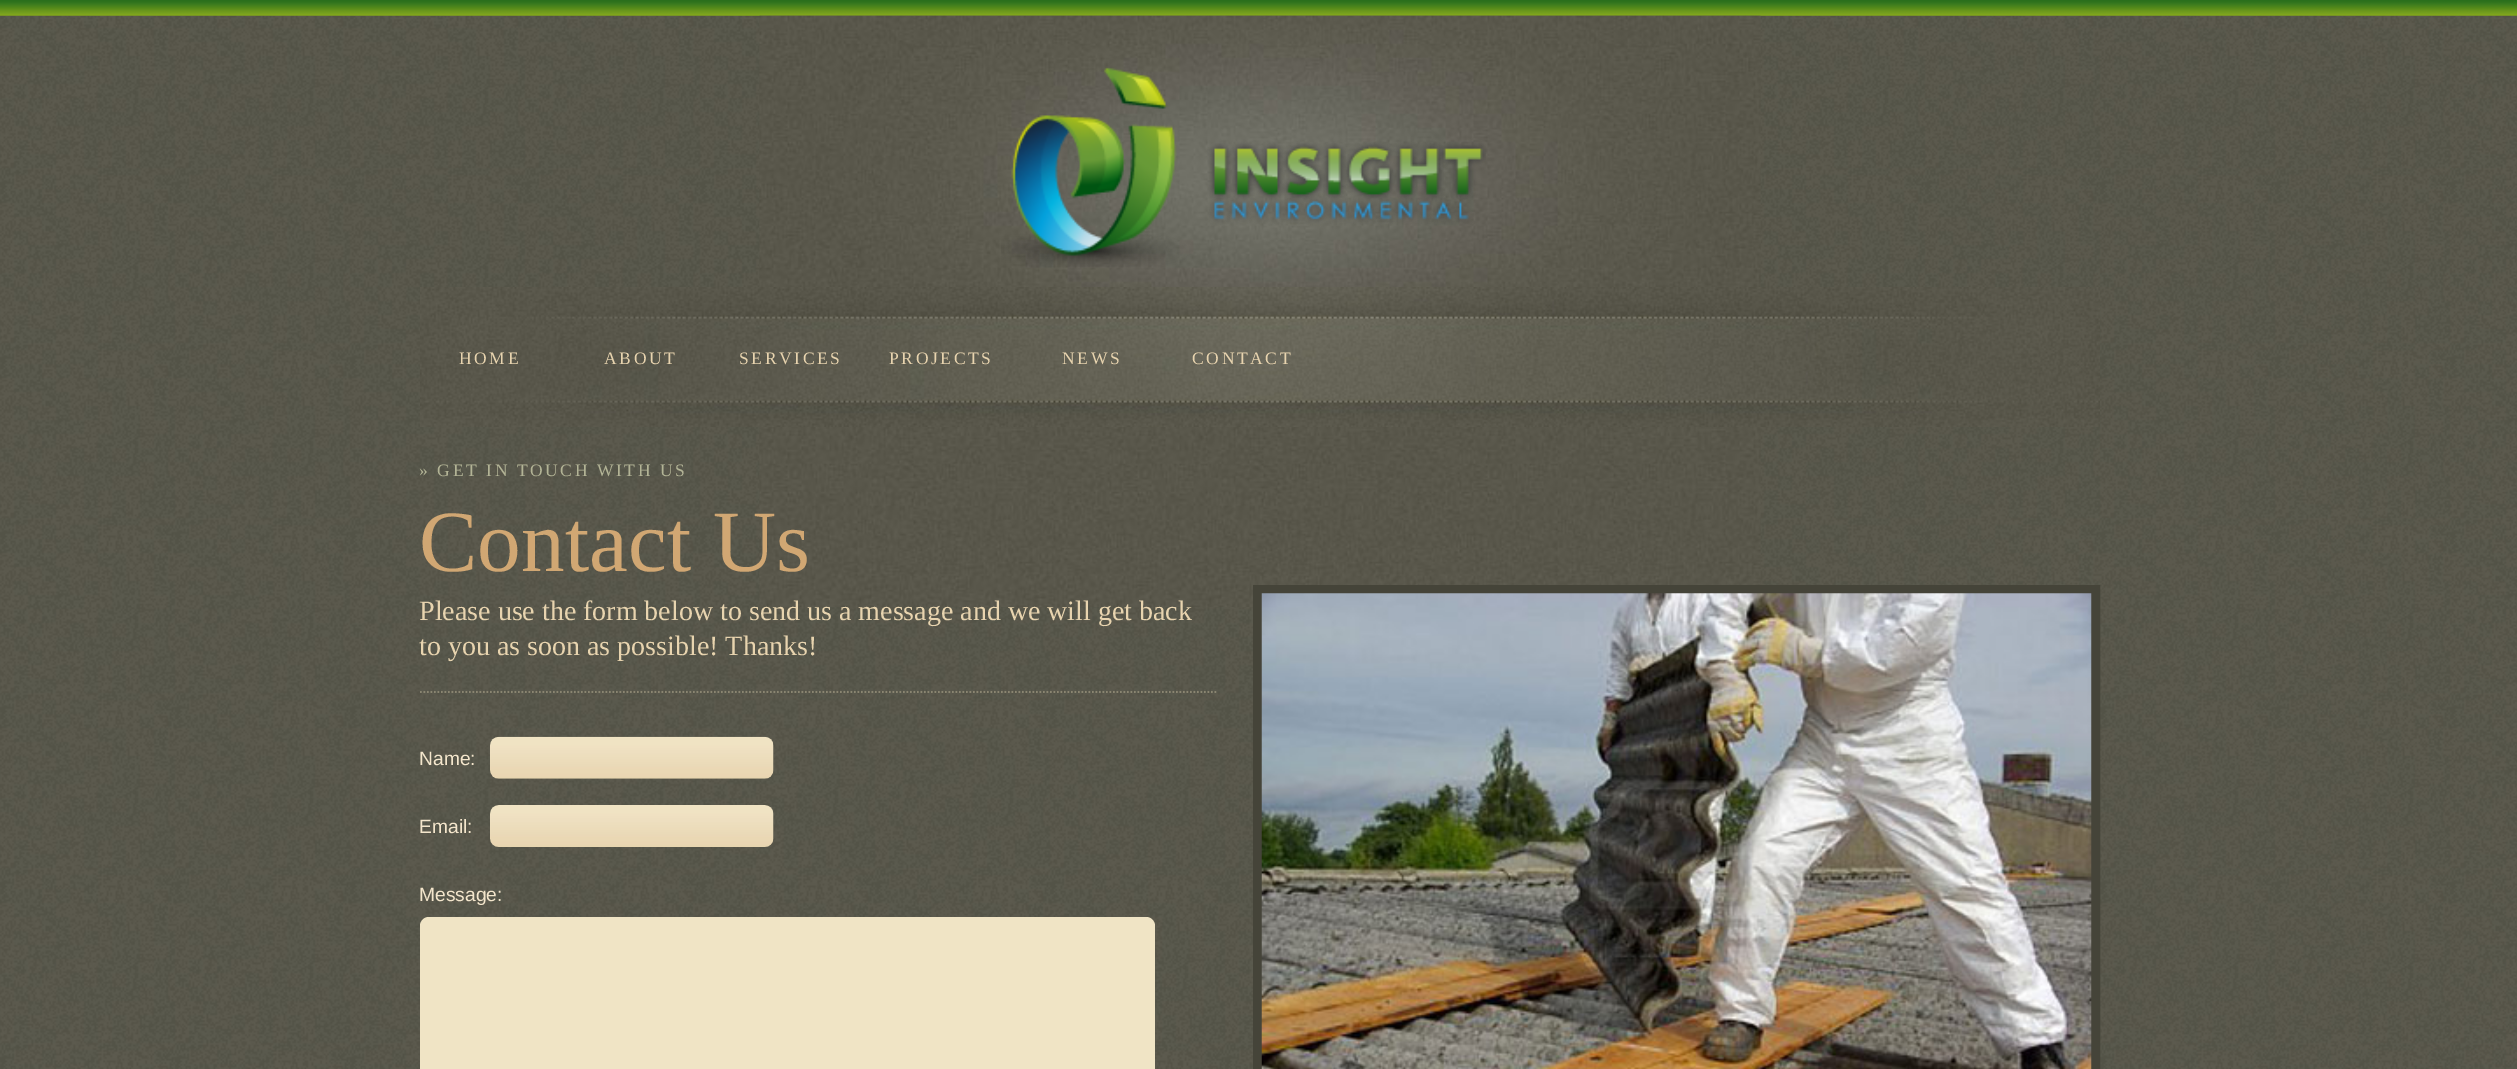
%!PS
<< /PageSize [2517 1069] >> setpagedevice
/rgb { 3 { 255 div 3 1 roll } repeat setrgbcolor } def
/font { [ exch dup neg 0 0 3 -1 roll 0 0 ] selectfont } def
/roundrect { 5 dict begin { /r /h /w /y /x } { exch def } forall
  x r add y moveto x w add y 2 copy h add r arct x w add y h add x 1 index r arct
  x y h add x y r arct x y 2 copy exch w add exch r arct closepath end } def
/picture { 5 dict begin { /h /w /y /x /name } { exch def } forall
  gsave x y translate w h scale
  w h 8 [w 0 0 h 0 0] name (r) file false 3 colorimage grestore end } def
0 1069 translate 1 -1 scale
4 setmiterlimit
255 255 255 rgb
0 0 2517 1069 rectfill
(img/1.rgb) 0 15 2517 1054 picture
(img/2.rgb) 0 0 2517 16 picture
(img/3.rgb) 759 15 1002 592 picture
(img/4.rgb) 1001 67 485 200 picture
(img/5.rgb) 420 287 1680 140 picture
69 68 57 rgb
9 setlinewidth
1257.5 589.5 838 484 rectstroke
(img/6.rgb) 1261 593 831 476 picture
91 90 78 rgb
1.8 setlinewidth
[1.75 1.75] 0 setdash
420 690.5 moveto 1218 690.5 lineto stroke
138 133 113 rgb
420 692 moveto 1218 692 lineto stroke
(img/7.rgb) 490 736 284 43 picture
(img/8.rgb) 490 805 284 42 picture
240 228 197 rgb
420 917 735 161 9 roundrect fill
/LiberationSerif-Regular 17.5 font
232 212 175 rgb
459 364 moveto 2.6 0 (HOME) ashow
604 364 moveto 2.6 0 (ABOUT) ashow
739 364 moveto 2.6 0 (SERVICES) ashow
889 364 moveto 2.6 0 (PROJECTS) ashow
1062 364 moveto 2.6 0 (NEWS) ashow
1192 364 moveto 2.6 0 (CONTACT) ashow
179 180 150 rgb
419 476 moveto 2.6 0 (» GET IN TOUCH WITH US) ashow
/LiberationSerif-Regular 87.5 font
209 167 115 rgb
419 571 moveto (Contact Us) show
/LiberationSerif-Regular 28 font
232 212 175 rgb
419 620 moveto (Please use the form below to send us a message and we will get back) show
419 655 moveto (to you as soon as possible! Thanks!) show
/LiberationSans-Regular 19.25 font
244 230 204 rgb
[
  [(Name:) 419 765]
  [(Email:) 419 833]
  [(Message:) 419 901]
] { aload pop moveto show } forall
showpage
